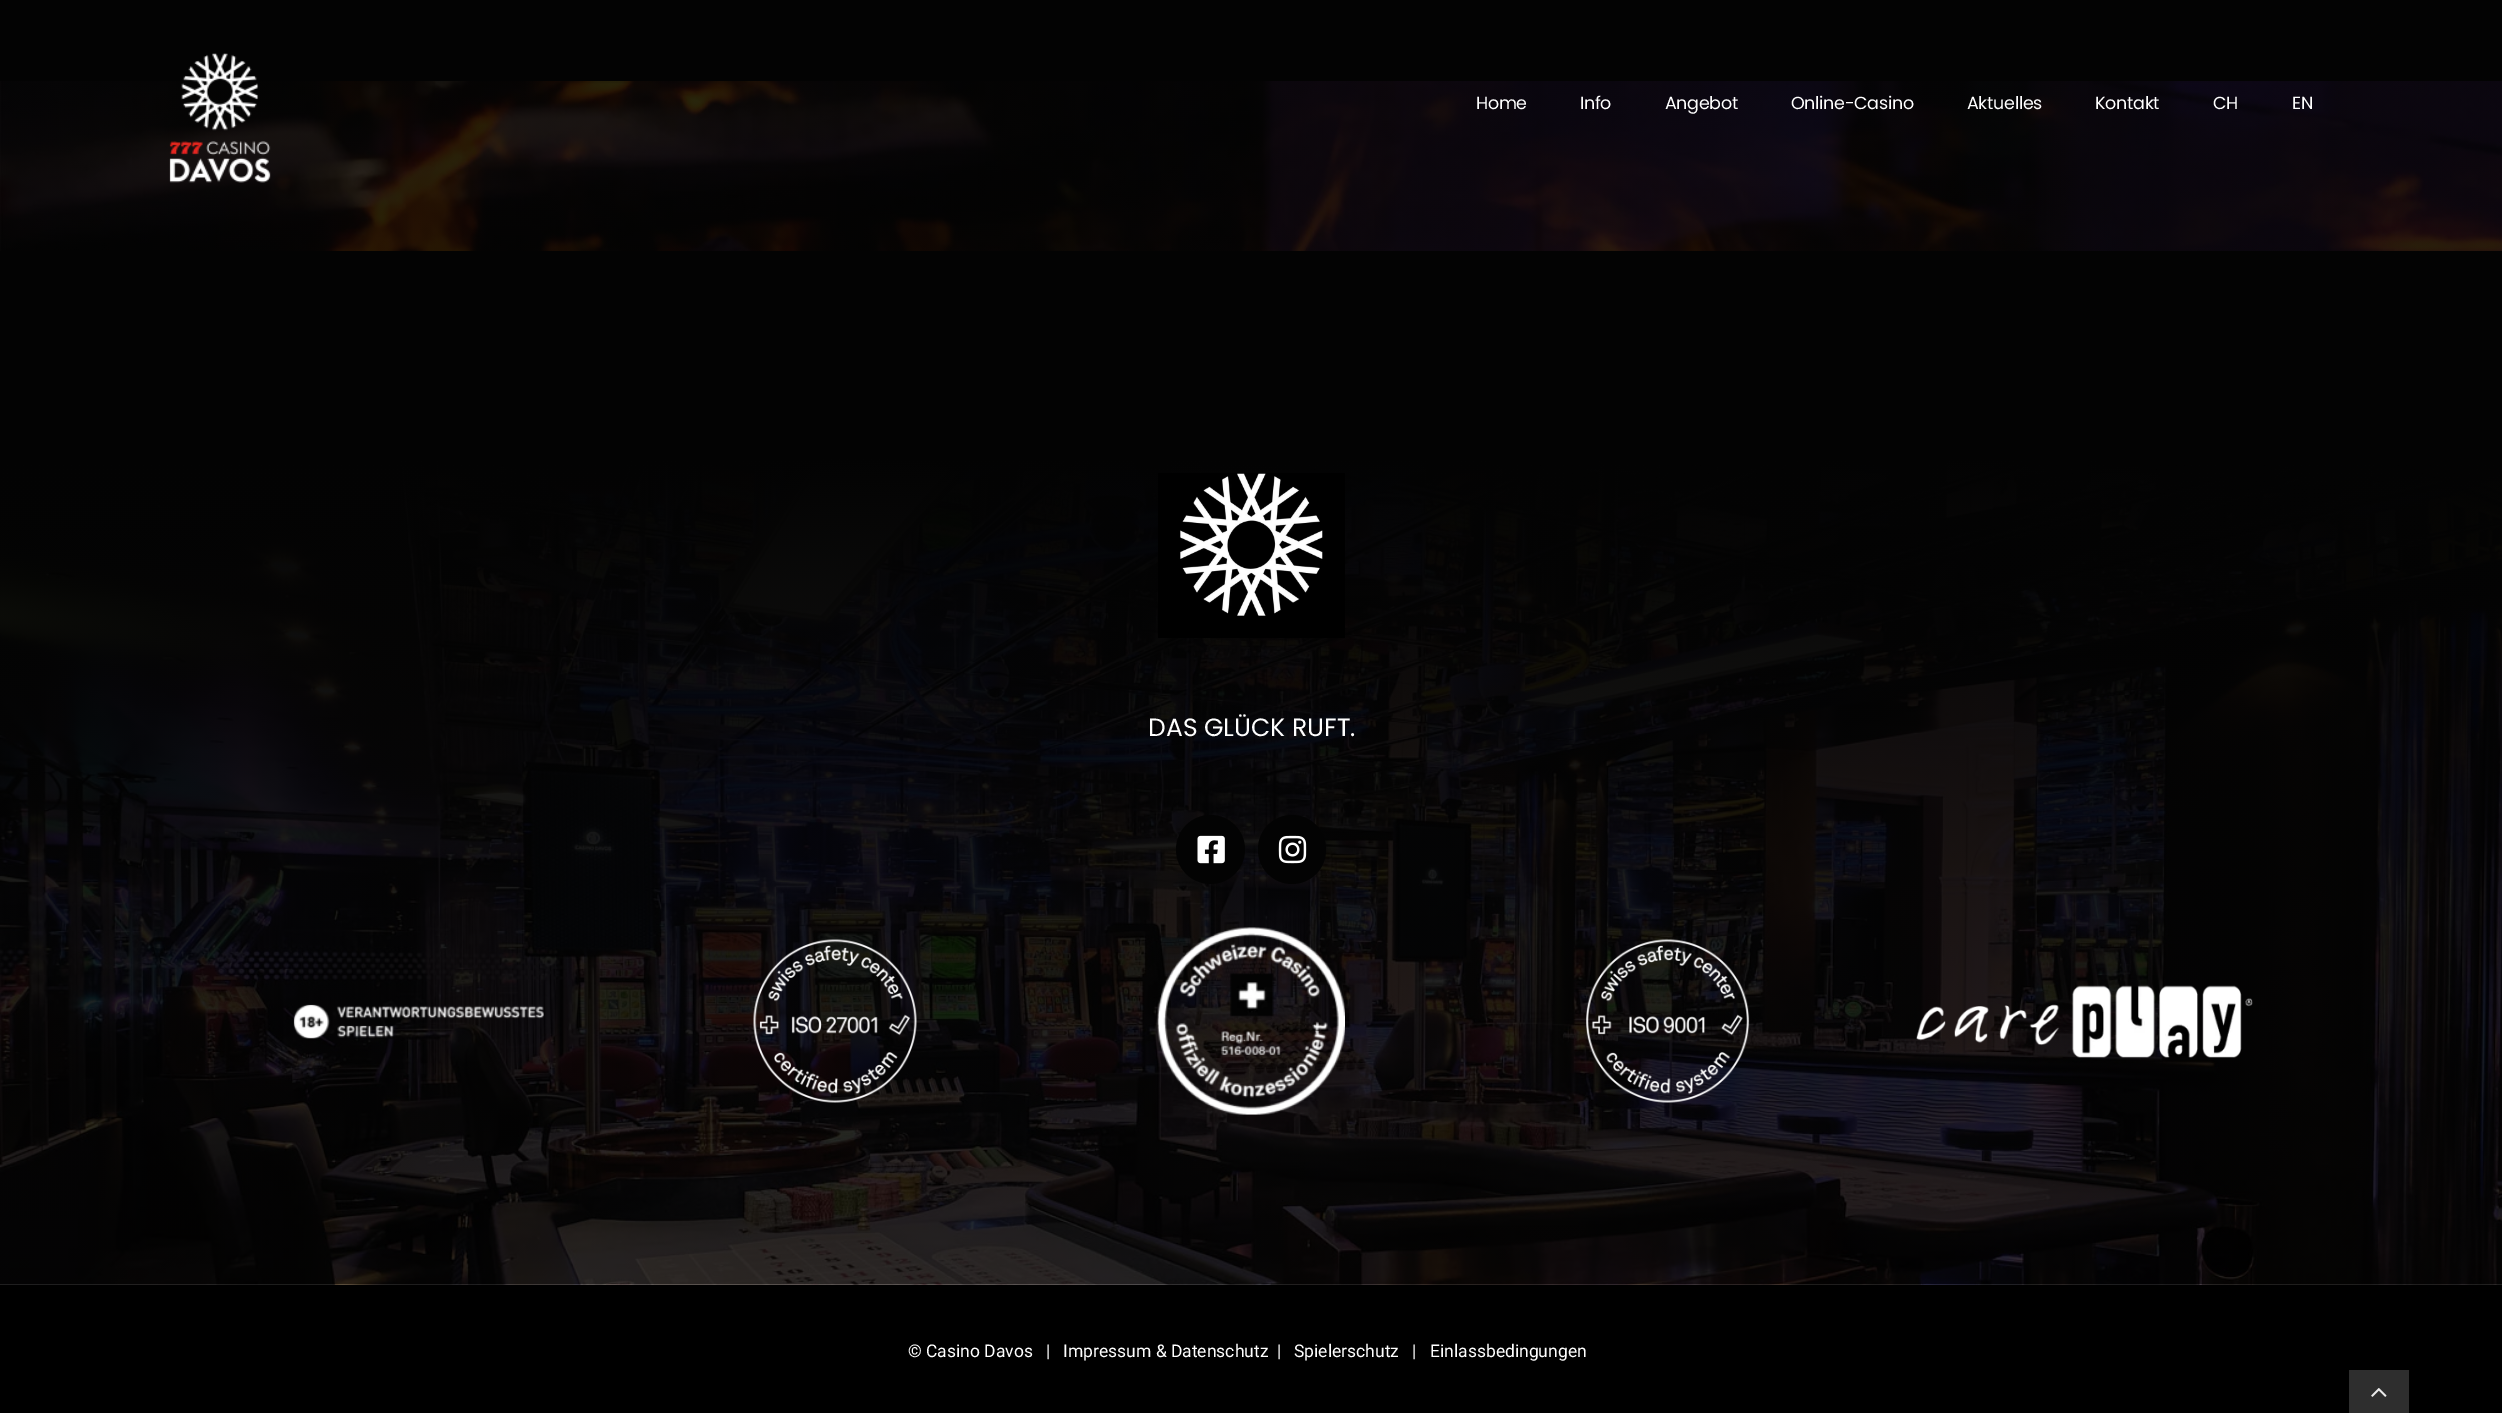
%!PS
<< /PageSize [2502 1413] /PageUsesTransparency true >> setpagedevice
/rgb { 3 { 255 div 3 1 roll } repeat setrgbcolor } def
/font { [ exch dup neg 0 0 3 -1 roll 0 0 ] selectfont } def
/alpha { dup .setfillconstantalpha .setstrokeconstantalpha } def
/circle { newpath 0 360 arc closepath } def
/roundrect { 5 dict begin { /r /h /w /y /x } { exch def } forall
  x r add y moveto x w add y 2 copy h add r arct x w add y h add x 1 index r arct
  x y h add x y r arct x y 2 copy exch w add exch r arct closepath end } def
/shadow { 12 dict begin { /a /b /q /h /w /y /x } { exch def } forall gsave /was 0 def
  9 -2 -9 { dup b mul 4 div /e exch def 1 sub .425 mul 2.718 exch exp 1 add a .99 .min exch div /now exch def
    1 1 now sub 1 was sub div sub alpha /was now def
    w h .min e 2 mul add 0 gt { x e sub y e sub w e 2 mul add h e 2 mul add
      q e add b .6 mul add w h .min 2 div e add .min 0 .max roundrect fill } if } for grestore end } def
/picture { 5 dict begin { /h /w /y /x /name } { exch def } forall
  gsave x y translate w h scale
  w h 8 [w 0 0 h 0 0] name (r) file false 3 colorimage grestore end } def
0 .pushpdf14devicefilter
0 1413 translate 1 -1 scale
4 setmiterlimit
255 255 255 rgb
0 0 2502 1413 rectfill
(img/1.rgb) 0 81 2502 170 picture
0 0 0 rgb
0 1 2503 82 0 2 0.12 shadow
3 3 3 rgb
0 0 2502 81 rectfill
(img/2.rgb) 169 53 102 130 picture
(img/3.rgb) 0 251 2502 1034 picture
(img/4.rgb) 1158 473 187 165 picture
1210.5 849.5 34.5 circle fill
(img/5.rgb) 1197 835 28 29 picture
1258 815 68 69 34 roundrect fill
(img/6.rgb) 1278 835 29 29 picture
(img/7.rgb) 293 1004 251 35 picture
(img/8.rgb) 753 939 164 164 picture
(img/9.rgb) 1157 927 188 188 picture
(img/10.rgb) 1586 939 164 164 picture
(img/11.rgb) 1916 985 337 73 picture
0 0 0 rgb
0 1285 2502 128 rectfill
46 46 46 rgb
2349 1370 60 43 rectfill
(img/12.rgb) 2371 1388 16 9 picture
/Poppins-Regular 17.5 font
255 255 255 rgb
1476 109 moveto -0.3 0 (Home) ashow
1580 109 moveto -0.3 0 (Info) ashow
1665 109 moveto -0.3 0 (Angebot) ashow
1791 109 moveto -0.3 0 (Online-Casino) ashow
1967 109 moveto -0.3 0 (Aktuelles) ashow
2095 109 moveto -0.3 0 (Kontakt) ashow
2213 109 moveto -0.3 0 (CH) ashow
2292 109 moveto -0.3 0 (EN) ashow
/Poppins-Regular 25 font
1148 736 moveto (DAS GLÜCK RUFT.) show
/Roboto-Regular 17.5 font
[
  [(© Casino Davos   |) 908 1357]
  [(Impressum & Datenschutz) 1063 1357]
  [(|) 1277 1357]
  [(Spielerschutz) 1294 1357]
  [(|) 1412 1357]
  [(Einlassbedingungen) 1430 1357]
] { aload pop moveto show } forall
.poppdf14devicefilter showpage
